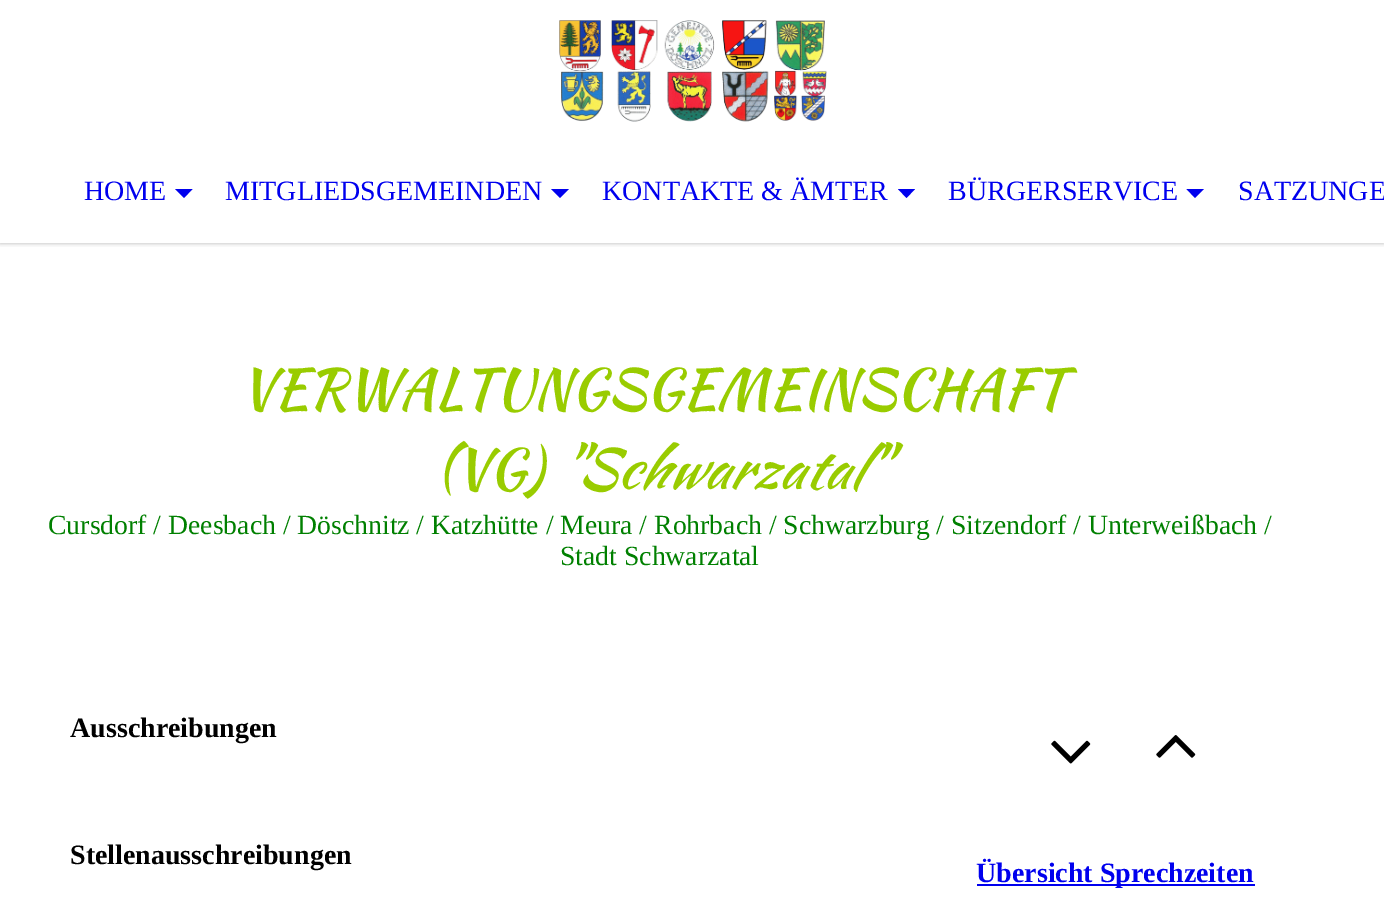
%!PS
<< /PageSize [1384 898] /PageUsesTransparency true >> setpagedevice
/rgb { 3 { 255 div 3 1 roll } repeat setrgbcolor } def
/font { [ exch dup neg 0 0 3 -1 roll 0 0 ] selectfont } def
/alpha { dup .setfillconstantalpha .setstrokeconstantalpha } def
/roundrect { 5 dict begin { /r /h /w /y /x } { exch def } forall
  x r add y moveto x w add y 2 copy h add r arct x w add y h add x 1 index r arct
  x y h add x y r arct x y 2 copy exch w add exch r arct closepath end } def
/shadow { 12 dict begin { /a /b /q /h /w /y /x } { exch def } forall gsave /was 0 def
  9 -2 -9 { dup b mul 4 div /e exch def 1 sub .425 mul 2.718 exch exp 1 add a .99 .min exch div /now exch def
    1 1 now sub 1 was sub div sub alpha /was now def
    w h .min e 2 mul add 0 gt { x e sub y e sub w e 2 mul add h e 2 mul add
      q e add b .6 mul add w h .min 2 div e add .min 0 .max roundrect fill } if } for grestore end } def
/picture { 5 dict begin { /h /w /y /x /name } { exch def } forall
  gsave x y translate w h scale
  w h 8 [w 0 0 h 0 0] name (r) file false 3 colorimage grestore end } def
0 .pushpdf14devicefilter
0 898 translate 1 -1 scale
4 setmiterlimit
255 255 255 rgb
0 0 1384 898 rectfill
gsave
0 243 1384 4 rectclip
0 0 0 rgb
0 0 1384 243 0 2.5 0.3 shadow
grestore
(img/1.rgb) 559 20 268 102 picture
0 0 238 rgb
175 189 moveto 192.5 189 lineto 184 198 lineto closepath fill
551 189 moveto 569 189 lineto 560 198 lineto closepath fill
898 189 moveto 915 189 lineto 906.5 198 lineto closepath fill
1186.5 189 moveto 1204 189 lineto 1195 198 lineto closepath fill
(img/2.rgb) 1051 740 40 24 picture
(img/3.rgb) 1156 735 40 23 picture
977 884 278 2 rectfill
/LiberationSerif-Regular 28 font
[
  [(HOME) 84 200]
  [(MITGLIEDSGEMEINDEN) 225 200]
  [(KONTAKTE & ÄMTER) 602 200]
  [(BÜRGERSERVICE) 948 200]
  [(SATZUNGE) 1238 200]
] { aload pop moveto show } forall
/KaushanScript-Regular 55.4 font
153 204 0 rgb
240 408 moveto (VERWALTUNGSGEMEINSCHAFT) show
437 488 moveto (\(VG\)) show
/KaushanScript-Italic 55.4 font
556 488 moveto ("Schwarzatal") show
/LiberationSerif-Regular 27.7 font
0 128 0 rgb
48 534 moveto (Cursdorf / Deesbach / Döschnitz / Katzhütte / Meura / Rohrbach / Schwarzburg / Sitzendorf / Unterweißbach /) show
560 565 moveto (Stadt Schwarzatal) show
/LiberationSerif-Bold 28 font
0 0 0 rgb
70 737 moveto (Ausschreibungen) show
70 864 moveto (Stellenausschreibungen) show
0 0 238 rgb
976 882 moveto (Übersicht Sprechzeiten) show
.poppdf14devicefilter showpage
